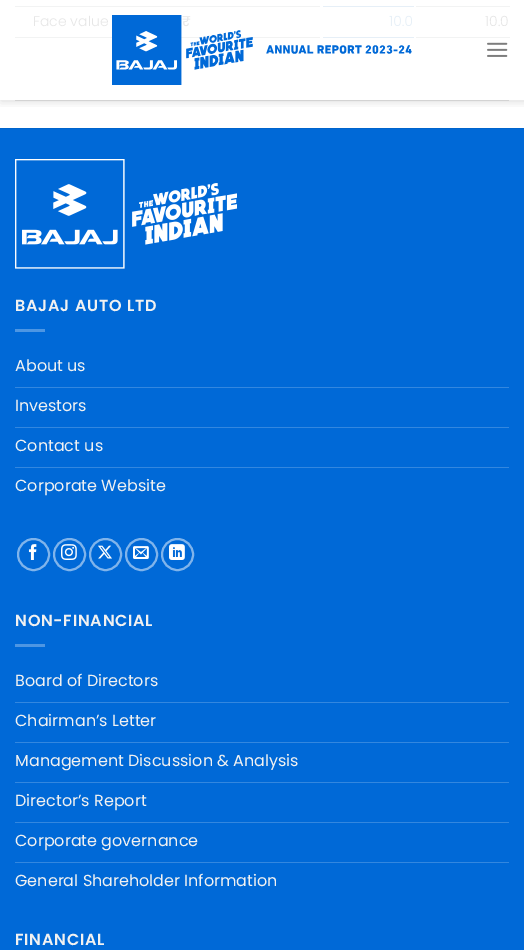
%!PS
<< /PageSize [524 950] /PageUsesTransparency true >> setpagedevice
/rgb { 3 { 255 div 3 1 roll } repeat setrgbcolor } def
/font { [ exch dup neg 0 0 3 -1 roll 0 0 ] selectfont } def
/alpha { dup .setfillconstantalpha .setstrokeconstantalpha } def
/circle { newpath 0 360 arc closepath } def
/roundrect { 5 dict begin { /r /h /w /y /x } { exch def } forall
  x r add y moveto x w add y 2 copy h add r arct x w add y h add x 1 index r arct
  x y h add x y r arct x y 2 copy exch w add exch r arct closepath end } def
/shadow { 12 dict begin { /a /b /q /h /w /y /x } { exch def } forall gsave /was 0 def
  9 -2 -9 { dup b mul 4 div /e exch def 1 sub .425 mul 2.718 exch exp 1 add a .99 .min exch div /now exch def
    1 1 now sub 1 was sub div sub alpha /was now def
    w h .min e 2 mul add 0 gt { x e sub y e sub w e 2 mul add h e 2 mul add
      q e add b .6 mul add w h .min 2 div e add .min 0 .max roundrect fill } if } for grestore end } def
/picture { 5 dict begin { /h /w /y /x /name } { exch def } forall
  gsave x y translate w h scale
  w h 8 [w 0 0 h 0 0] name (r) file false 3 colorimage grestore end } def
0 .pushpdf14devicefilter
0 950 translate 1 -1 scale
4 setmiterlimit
255 255 255 rgb
0 0 524 950 rectfill
[
  [15 6 305 1 242 243 243]
  [15 37 305 1 242 243 243]
  [323 6 91 1 230 239 247]
  [323 37 91 1 230 239 247]
  [416 6 94 1 242 243 243]
  [416 37 94 1 242 243 243]
] { aload pop rgb rectfill } forall
gsave
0 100 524 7 rectclip
0 0 0 rgb
1 1 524 100 0 5 0.15 shadow
grestore
(img/2.rgb) 487 42 21 15 picture
[
  [15 100 494 1 211 211 211]
  [0 129 524 821 0 105 215]
  [0 128 524 1 0 100 204]
] { aload pop rgb rectfill } forall
(img/3.rgb) 15 159 222 110 picture
[
  [15 329 30 3 77 150 227]
  [15 387 494 1 51 135 223]
  [15 427 494 1 51 135 223]
  [15 467 494 1 51 135 223]
] { aload pop rgb rectfill } forall
128 180 235 rgb
2 setlinewidth
33.5 554.5 15.5 circle stroke
(img/4.rgb) 28 544 9 16 picture
69.5 554.5 15.5 circle stroke
(img/5.rgb) 61 544 16 16 picture
105.5 554.5 15.5 circle stroke
(img/6.rgb) 98 545 14 14 picture
141.5 554.5 15.5 circle stroke
(img/7.rgb) 133 546 16 13 picture
177.5 554.5 15.5 circle stroke
(img/8.rgb) 169 544 16 16 picture
[
  [15 644 30 3 77 150 227]
  [15 702 494 1 51 135 223]
  [15 742 494 1 51 135 223]
  [15 782 494 1 51 135 223]
  [15 822 494 1 51 135 223]
  [15 862 494 1 51 135 223]
] { aload pop rgb rectfill } forall
/Poppins-Light 14 font
230 230 230 rgb
33 26 moveto (Face value) show
/Poppins-Regular 14 font
182 26 moveto (₹) show
/Poppins-Light 14 font
230 239 247 rgb
389 26 moveto (10.0) show
(img/1.rgb) 112 15 300 70 picture
230 230 230 rgb
485 26 moveto (10.0) show
/Poppins-SemiBold 16 font
241 241 241 rgb
15 311 moveto 0.75 0 (BAJAJ AUTO LTD) ashow
/Poppins-Regular 16 font
[
  [(About us) 15 371]
  [(Investors) 15 411]
  [(Contact us) 15 451]
  [(Corporate Website) 15 491]
] { aload pop moveto show } forall
/Poppins-SemiBold 16 font
15 626 moveto 0.75 0 (NON-FINANCIAL) ashow
/Poppins-Regular 16 font
[
  [(Board of Directors) 15 686]
  [(Chairman’s Letter) 15 726]
  [(Management Discussion & Analysis) 15 766]
  [(Director’s Report) 15 806]
  [(Corporate governance) 15 846]
  [(General Shareholder Information) 15 886]
] { aload pop moveto show } forall
/Poppins-SemiBold 16 font
15 945 moveto 0.75 0 (FINANCIAL) ashow
.poppdf14devicefilter showpage
